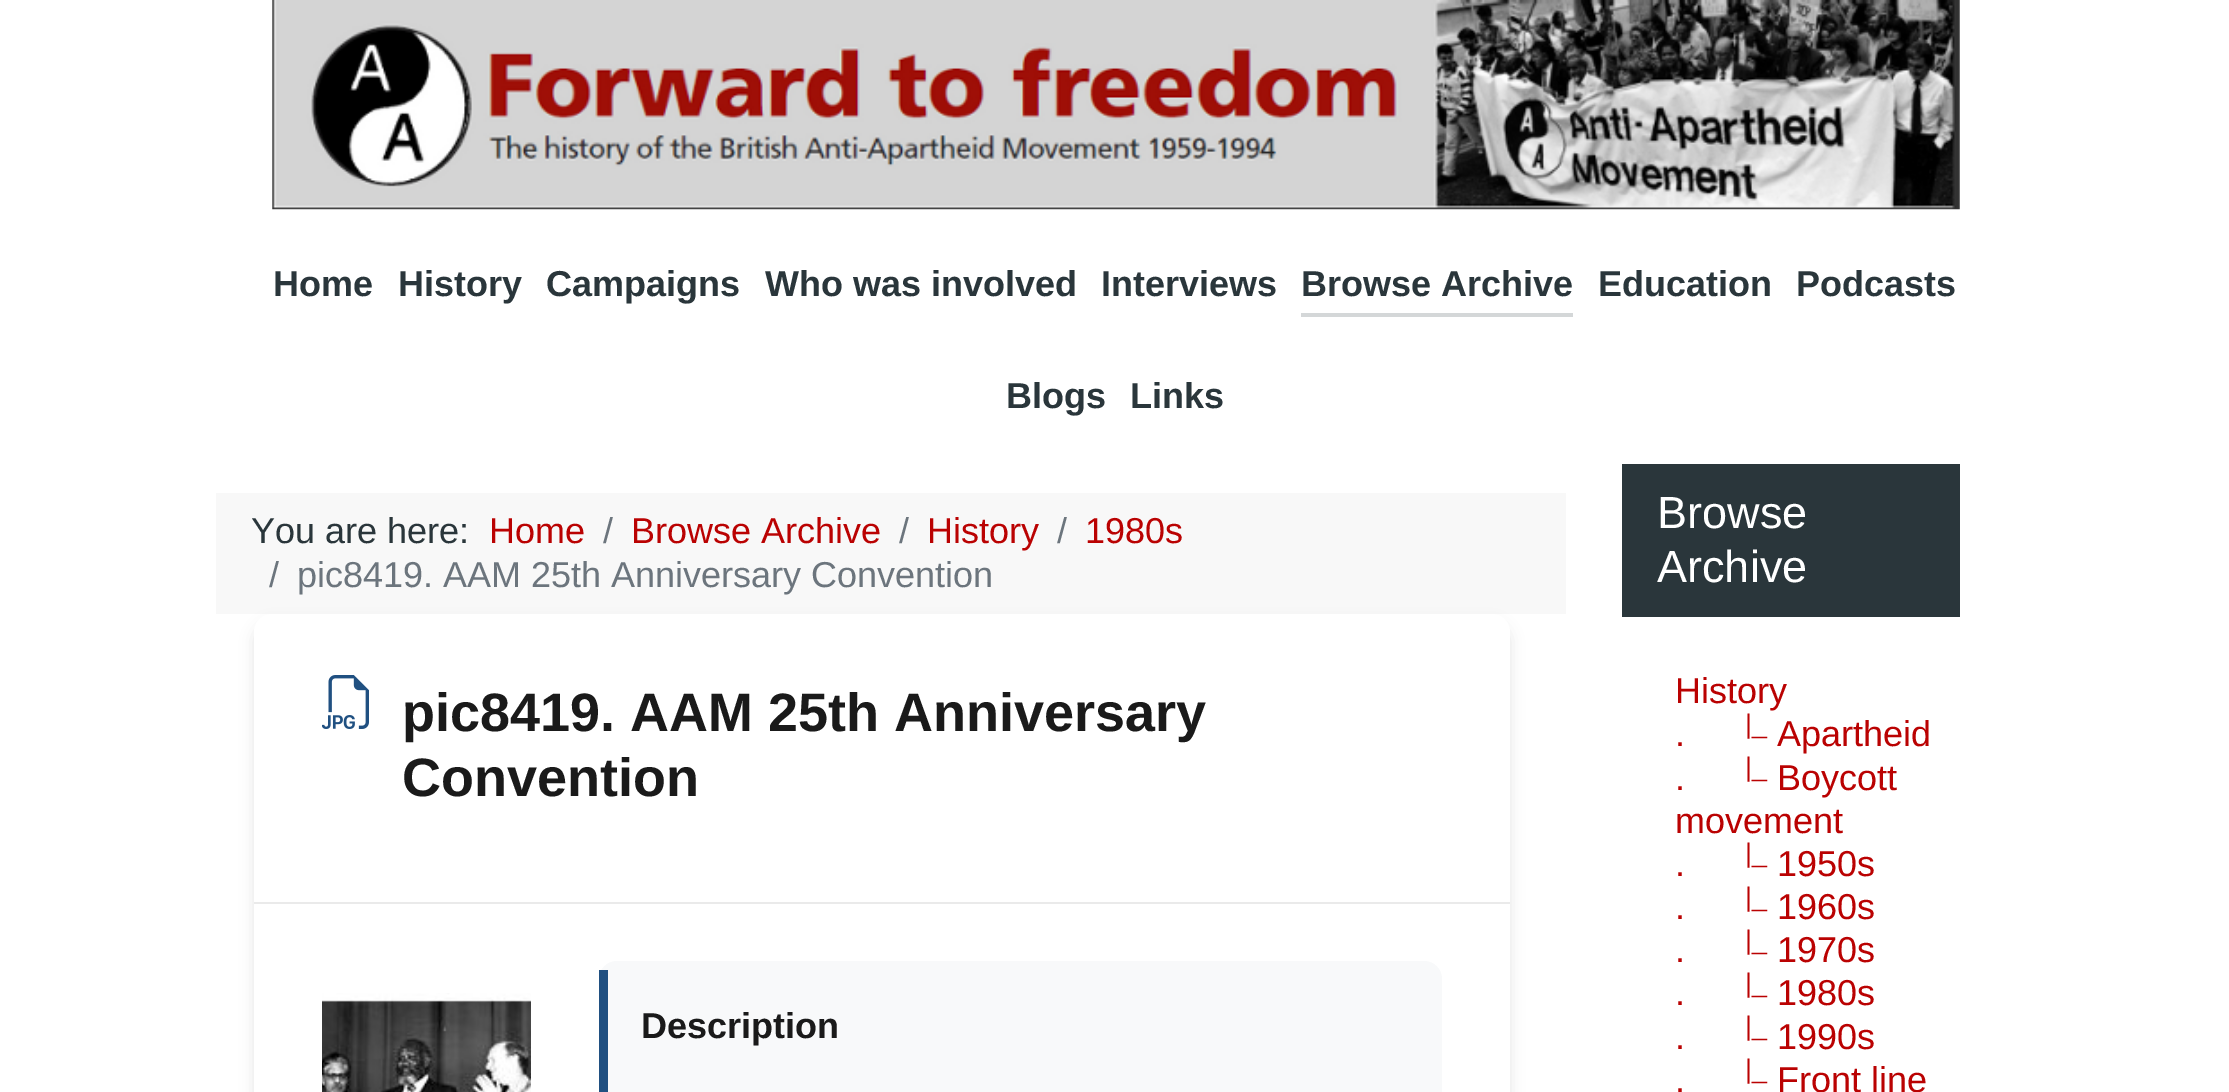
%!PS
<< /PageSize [2229 1092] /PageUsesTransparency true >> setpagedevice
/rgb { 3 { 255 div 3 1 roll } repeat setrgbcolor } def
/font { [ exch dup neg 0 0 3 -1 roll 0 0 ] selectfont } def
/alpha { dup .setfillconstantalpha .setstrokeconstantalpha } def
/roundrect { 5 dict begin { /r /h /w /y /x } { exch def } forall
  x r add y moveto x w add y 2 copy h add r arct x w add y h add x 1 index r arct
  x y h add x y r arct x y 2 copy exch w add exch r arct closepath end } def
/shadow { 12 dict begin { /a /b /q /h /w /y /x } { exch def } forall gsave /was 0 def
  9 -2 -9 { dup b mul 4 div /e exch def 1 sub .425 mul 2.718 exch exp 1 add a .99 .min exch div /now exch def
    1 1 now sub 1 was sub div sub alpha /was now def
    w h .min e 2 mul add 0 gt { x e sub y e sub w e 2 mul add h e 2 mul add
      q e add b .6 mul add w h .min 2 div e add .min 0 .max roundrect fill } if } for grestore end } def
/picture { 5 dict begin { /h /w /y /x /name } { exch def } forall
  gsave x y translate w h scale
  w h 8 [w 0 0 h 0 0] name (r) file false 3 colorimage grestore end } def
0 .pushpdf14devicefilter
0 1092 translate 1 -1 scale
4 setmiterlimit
255 255 255 rgb
0 0 2229 1092 rectfill
(img/1.rgb) 272 0 1688 210 picture
212 215 216 rgb
1301 313 moveto 1301 317 lineto 1573 317 lineto 1573 268 lineto 1573 313 lineto closepath fill
248 248 248 rgb
216 493 1350 121 rectfill
0 0 0 rgb
254 623 1256 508 18 7 0.1 shadow
255 255 255 rgb
254 614 1256 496 18 roundrect fill
234 234 234 rgb
254 902 1256 2 rectfill
(img/2.rgb) 322 675 47 54 picture
(img/3.rgb) 322 993 209 99 picture
248 249 250 rgb
599 961 843 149 18 roundrect fill
32 80 129 rgb
599 970 9 122 rectfill
42 54 59 rgb
1622 464 338 153 rectfill
/LiberationSans-Bold 36 font
[
  [(Home) 273 296]
  [(History) 398 296]
  [(Campaigns) 546 296]
  [(Who was involved) 765 296]
  [(Interviews) 1101 296]
  [(Browse Archive) 1301 296]
  [(Education) 1598 296]
  [(Podcasts) 1796 296]
  [(Blogs) 1006 408]
  [(Links) 1130 408]
] { aload pop moveto show } forall
/LiberationSans-Regular 36 font
251 543 moveto (You are here:) show
186 2 2 rgb
489 543 moveto (Home) show
108 117 125 rgb
603 543 moveto (/) show
186 2 2 rgb
631 543 moveto (Browse Archive) show
108 117 125 rgb
899 543 moveto (/) show
186 2 2 rgb
927 543 moveto (History) show
108 117 125 rgb
1057 543 moveto (/) show
186 2 2 rgb
1085 543 moveto (1980s) show
108 117 125 rgb
269 587 moveto (/) show
297 587 moveto (pic8419. AAM 25th Anniversary Convention) show
/LiberationSans-Bold 54 font
26 26 26 rgb
402 731 moveto (pic8419. AAM 25th Anniversary) show
402 796 moveto (Convention) show
/LiberationSans-Bold 36 font
641 1038 moveto (Description) show
/LiberationSans-Regular 45 font
255 255 255 rgb
1657 528 moveto (Browse) show
1657 582 moveto (Archive) show
/LiberationSans-Regular 36 font
186 2 2 rgb
1675 703 moveto (History) show
1675 746 moveto (.) show
/LiberationSans-Regular 27 font
1745 733 moveto (|_) show
/LiberationSans-Regular 36 font
1777 746 moveto (Apartheid) show
1675 790 moveto (.) show
/LiberationSans-Regular 27 font
1745 776 moveto (|_) show
/LiberationSans-Regular 36 font
[
  [(Boycott) 1777 790]
  [(movement) 1675 833]
  [(.) 1675 876]
] { aload pop moveto show } forall
/LiberationSans-Regular 27 font
1745 862 moveto (|_) show
/LiberationSans-Regular 36 font
1777 876 moveto (1950s) show
1675 919 moveto (.) show
/LiberationSans-Regular 27 font
1745 906 moveto (|_) show
/LiberationSans-Regular 36 font
1777 919 moveto (1960s) show
1675 962 moveto (.) show
/LiberationSans-Regular 27 font
1745 949 moveto (|_) show
/LiberationSans-Regular 36 font
1777 962 moveto (1970s) show
1675 1005 moveto (.) show
/LiberationSans-Regular 27 font
1745 992 moveto (|_) show
/LiberationSans-Regular 36 font
1777 1005 moveto (1980s) show
1675 1049 moveto (.) show
/LiberationSans-Regular 27 font
1745 1035 moveto (|_) show
/LiberationSans-Regular 36 font
1777 1049 moveto (1990s) show
1675 1092 moveto (.) show
/LiberationSans-Regular 27 font
1745 1078 moveto (|_) show
/LiberationSans-Regular 36 font
1777 1092 moveto (Front line) show
.poppdf14devicefilter showpage
